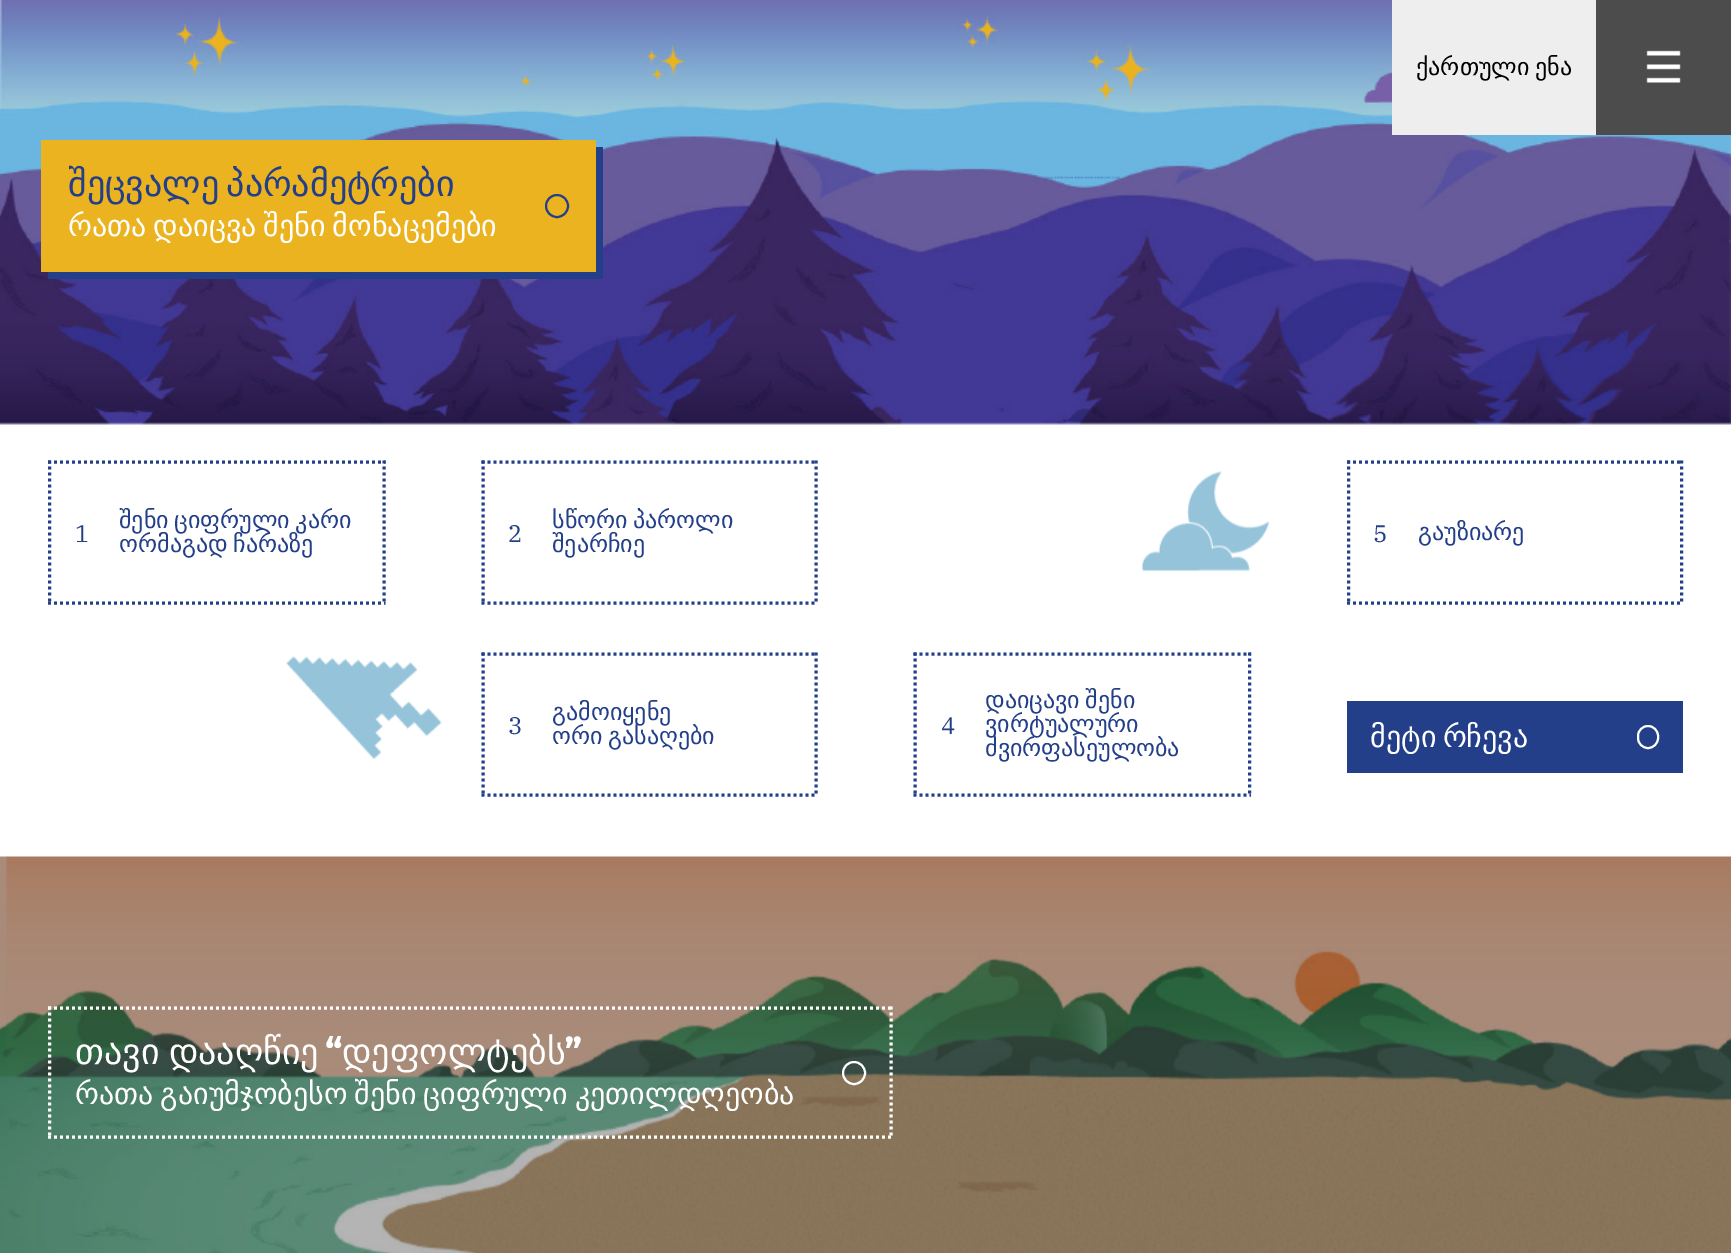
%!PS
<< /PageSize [1731 1253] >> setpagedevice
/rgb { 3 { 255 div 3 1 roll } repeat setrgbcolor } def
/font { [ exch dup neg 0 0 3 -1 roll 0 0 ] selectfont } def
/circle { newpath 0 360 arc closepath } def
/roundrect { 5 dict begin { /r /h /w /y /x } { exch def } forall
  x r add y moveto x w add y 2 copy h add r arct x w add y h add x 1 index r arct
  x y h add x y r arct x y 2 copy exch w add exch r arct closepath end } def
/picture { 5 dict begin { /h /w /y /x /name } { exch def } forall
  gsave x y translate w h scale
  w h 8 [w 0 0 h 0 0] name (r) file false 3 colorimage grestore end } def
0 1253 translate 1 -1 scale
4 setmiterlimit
255 255 255 rgb
0 0 1731 1253 rectfill
(img/2.rgb) 0 0 1731 425 picture
238 238 238 rgb
1392 0 204 135 rectfill
76 76 76 rgb
1596 0 135 135 rectfill
(img/1.rgb) 1646 50 35 33 picture
36 63 138 rgb
48 272 moveto 48 279 lineto 603 279 lineto 603 147 lineto 596 147 lineto 596 272 lineto closepath fill
235 179 32 rgb
41 140 555 132 rectfill
36 63 138 rgb
2 setlinewidth
557 206 11 circle stroke
(img/3.rgb) 286 471 984 289 picture
3 setlinewidth
[3 3] 0 setdash
48 462 moveto 385.5 462 lineto stroke
384 460.5 moveto 384 604.5 lineto stroke
48 603 moveto 385.5 603 lineto stroke
49.5 460.5 moveto 49.5 604.5 lineto stroke
481.5 462 moveto 817.5 462 lineto stroke
816 460.5 moveto 816 604.5 lineto stroke
481.5 603 moveto 817.5 603 lineto stroke
483 460.5 moveto 483 604.5 lineto stroke
1347 462 moveto 1683 462 lineto stroke
1681.5 460.5 moveto 1681.5 604.5 lineto stroke
1347 603 moveto 1683 603 lineto stroke
1348.5 460.5 moveto 1348.5 604.5 lineto stroke
481.5 654 moveto 817.5 654 lineto stroke
816 652.5 moveto 816 796.5 lineto stroke
481.5 795 moveto 817.5 795 lineto stroke
483 652.5 moveto 483 796.5 lineto stroke
913.5 654 moveto 1251 654 lineto stroke
1249.5 652.5 moveto 1249.5 796.5 lineto stroke
913.5 795 moveto 1251 795 lineto stroke
915 652.5 moveto 915 796.5 lineto stroke
1347 701 336 72 rectfill
255 255 255 rgb
2 setlinewidth
[] 0 setdash
1638 726 20 22 10 roundrect stroke
(img/4.rgb) 0 856 1731 397 picture
3 setlinewidth
[3 3] 0 setdash
48 1008 moveto 892.5 1008 lineto stroke
891 1006.5 moveto 891 1138.5 lineto stroke
48 1137 moveto 892.5 1137 lineto stroke
49.5 1006.5 moveto 49.5 1138.5 lineto stroke
2 setlinewidth
[] 0 setdash
854 1073 11 circle stroke
/DejaVuSans-Regular 24 font
0 0 0 rgb
1416 75 moveto -2 0 32 (ქართული ენა) widthshow
/DejaVuSans-Regular 36 font
36 63 138 rgb
68 196 moveto -4 0 32 (შეცვალე პარამეტრები) widthshow
/DejaVuSans-Regular 30 font
255 255 255 rgb
68 236 moveto -2.5 0 32 (რათა დაიცვა შენი მონაცემები) widthshow
/IBMPlexSerif-Regular 24 font
36 63 138 rgb
75 542 moveto (1) show
/DejaVuSans-Regular 24 font
119 528 moveto -2 0 32 (შენი ციფრული კარი) widthshow
119 552 moveto -2 0 32 (ორმაგად ჩარაზე) widthshow
/IBMPlexSerif-Regular 24 font
508 542 moveto (2) show
/DejaVuSans-Regular 24 font
552 528 moveto -2 0 32 (სწორი პაროლი) widthshow
552 552 moveto (შეარჩიე) show
/IBMPlexSerif-Regular 24 font
1373 542 moveto (5) show
/DejaVuSans-Regular 24 font
1418 540 moveto (გაუზიარე) show
/IBMPlexSerif-Regular 24 font
508 734 moveto (3) show
/DejaVuSans-Regular 24 font
552 720 moveto (გამოიყენე) show
552 744 moveto -2 0 32 (ორი გასაღები) widthshow
/IBMPlexSerif-Regular 24 font
941 734 moveto (4) show
/DejaVuSans-Regular 24 font
985 708 moveto -2 0 32 (დაიცავი შენი) widthshow
985 732 moveto (ვირტუალური) show
985 756 moveto (ძვირფასეულობა) show
/DejaVuSans-Regular 30 font
255 255 255 rgb
1370 747 moveto -3 0 32 (მეტი რჩევა) widthshow
/DejaVuSans-Regular 36 font
75 1064 moveto -2 0 32 (თავი დააღწიე) widthshow
/FiraSans-Black 36 font
325 1064 moveto (“) show
/DejaVuSans-Regular 36 font
342 1064 moveto (დეფოლტებს) show
/FiraSans-Black 36 font
565 1064 moveto (”) show
/DejaVuSans-Regular 30 font
75 1104 moveto -2.5 0 32 (რათა გაიუმჯობესო შენი ციფრული კეთილდღეობა) widthshow
showpage
